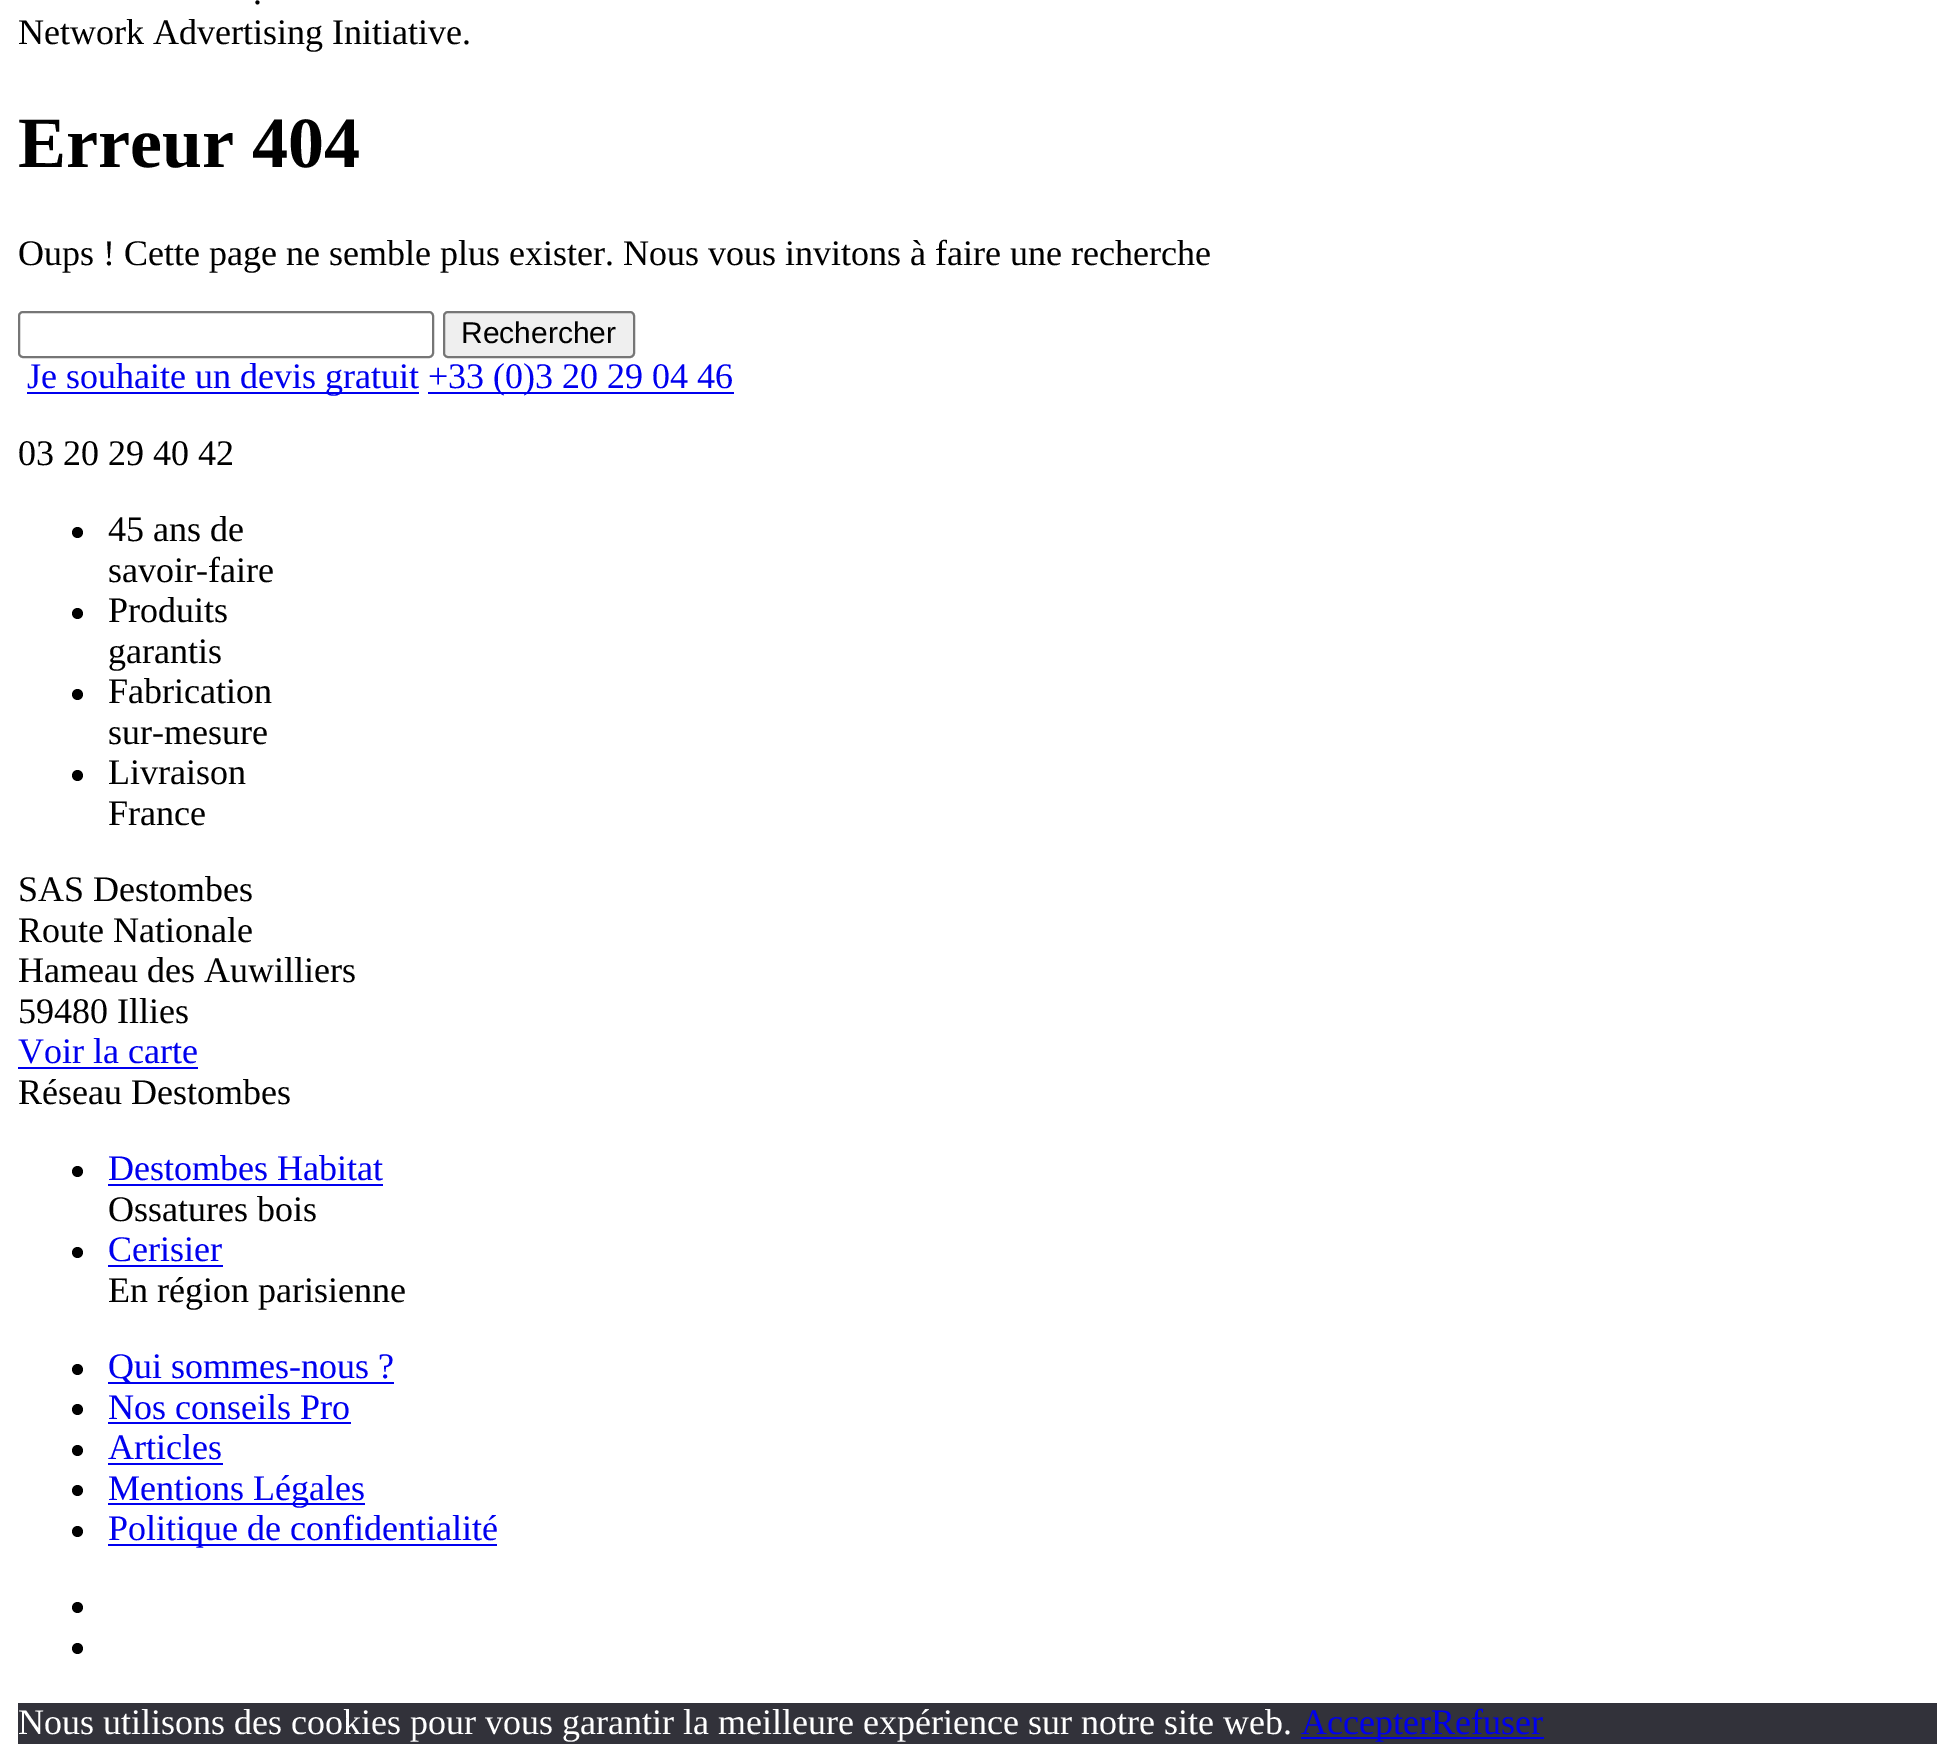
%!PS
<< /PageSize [1955 1761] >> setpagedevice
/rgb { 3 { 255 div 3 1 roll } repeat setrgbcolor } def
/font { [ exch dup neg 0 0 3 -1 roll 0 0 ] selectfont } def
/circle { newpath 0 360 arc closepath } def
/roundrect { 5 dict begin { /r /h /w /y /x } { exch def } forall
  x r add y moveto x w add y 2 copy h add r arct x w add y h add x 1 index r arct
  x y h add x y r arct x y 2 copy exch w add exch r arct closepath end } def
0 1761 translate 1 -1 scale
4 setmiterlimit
255 255 255 rgb
0 0 1955 1761 rectfill
118 118 118 rgb
2 setlinewidth
19 312 414 45 4 roundrect stroke
239 239 239 rgb
444 312 190 45 4 roundrect gsave fill grestore
118 118 118 rgb
stroke
0 0 238 rgb
27 392 392 2 rectfill
428 392 306 2 rectfill
0 0 0 rgb
77.5 532.5 5.5 circle fill
77.5 613.5 5.5 circle fill
77.5 694.5 5.5 circle fill
77.5 775.5 5.5 circle fill
0 0 238 rgb
18 1067 180 2 rectfill
0 0 0 rgb
77.5 1171.5 5.5 circle fill
0 0 238 rgb
108 1184 275 2 rectfill
0 0 0 rgb
77.5 1252.5 5.5 circle fill
0 0 238 rgb
108 1265 115 2 rectfill
0 0 0 rgb
77.5 1369.5 5.5 circle fill
0 0 238 rgb
108 1382 286 2 rectfill
0 0 0 rgb
77.5 1409.5 5.5 circle fill
0 0 238 rgb
108 1422 243 2 rectfill
0 0 0 rgb
77.5 1450.5 5.5 circle fill
0 0 238 rgb
108 1463 115 2 rectfill
0 0 0 rgb
77.5 1490.5 5.5 circle fill
0 0 238 rgb
108 1503 257 2 rectfill
0 0 0 rgb
77.5 1531.5 5.5 circle fill
0 0 238 rgb
108 1544 389 2 rectfill
0 0 0 rgb
77.5 1607.5 5.5 circle fill
77.5 1648.5 5.5 circle fill
50 50 58 rgb
18 1703 1919 41 rectfill
0 0 238 rgb
1301 1737 243 2 rectfill
/LiberationSerif-Regular 36 font
0 0 0 rgb
253 4 moveto (.) show
18 44 moveto (Network Advertising Initiative.) show
/LiberationSerif-Bold 72 font
18 167 moveto (Erreur 404) show
/LiberationSerif-Regular 36 font
18 265 moveto (Oups ! Cette page ne semble plus exister. Nous vous invitons à faire une recherche) show
/LiberationSans-Regular 30 font
461 343 moveto (Rechercher) show
/LiberationSerif-Regular 36 font
0 0 238 rgb
27 388 moveto (Je souhaite un devis gratuit) show
428 388 moveto (+33 \(0\)3 20 29 04 46) show
0 0 0 rgb
[
  [(03 20 29 40 42) 18 465]
  [(45 ans de) 108 541]
  [(savoir-faire) 108 582]
  [(Produits) 108 622]
  [(garantis) 108 663]
  [(Fabrication) 108 703]
  [(sur-mesure) 108 744]
  [(Livraison) 108 784]
  [(France) 108 825]
  [(SAS Destombes) 18 901]
  [(Route Nationale) 18 942]
  [(Hameau des Auwilliers) 18 982]
  [(59480 Illies) 18 1023]
] { aload pop moveto show } forall
0 0 238 rgb
18 1063 moveto (Voir la carte) show
0 0 0 rgb
18 1104 moveto (Réseau Destombes) show
0 0 238 rgb
108 1180 moveto (Destombes Habitat) show
0 0 0 rgb
108 1221 moveto (Ossatures bois) show
0 0 238 rgb
108 1261 moveto (Cerisier) show
0 0 0 rgb
108 1302 moveto (En région parisienne) show
0 0 238 rgb
[
  [(Qui sommes-nous ?) 108 1378]
  [(Nos conseils Pro) 108 1419]
  [(Articles) 108 1459]
  [(Mentions Légales) 108 1500]
  [(Politique de confidentialité) 108 1540]
] { aload pop moveto show } forall
255 255 255 rgb
18 1734 moveto (Nous utilisons des cookies pour vous garantir la meilleure expérience sur notre site web.) show
0 0 238 rgb
1301 1734 moveto (AccepterRefuser) show
showpage
